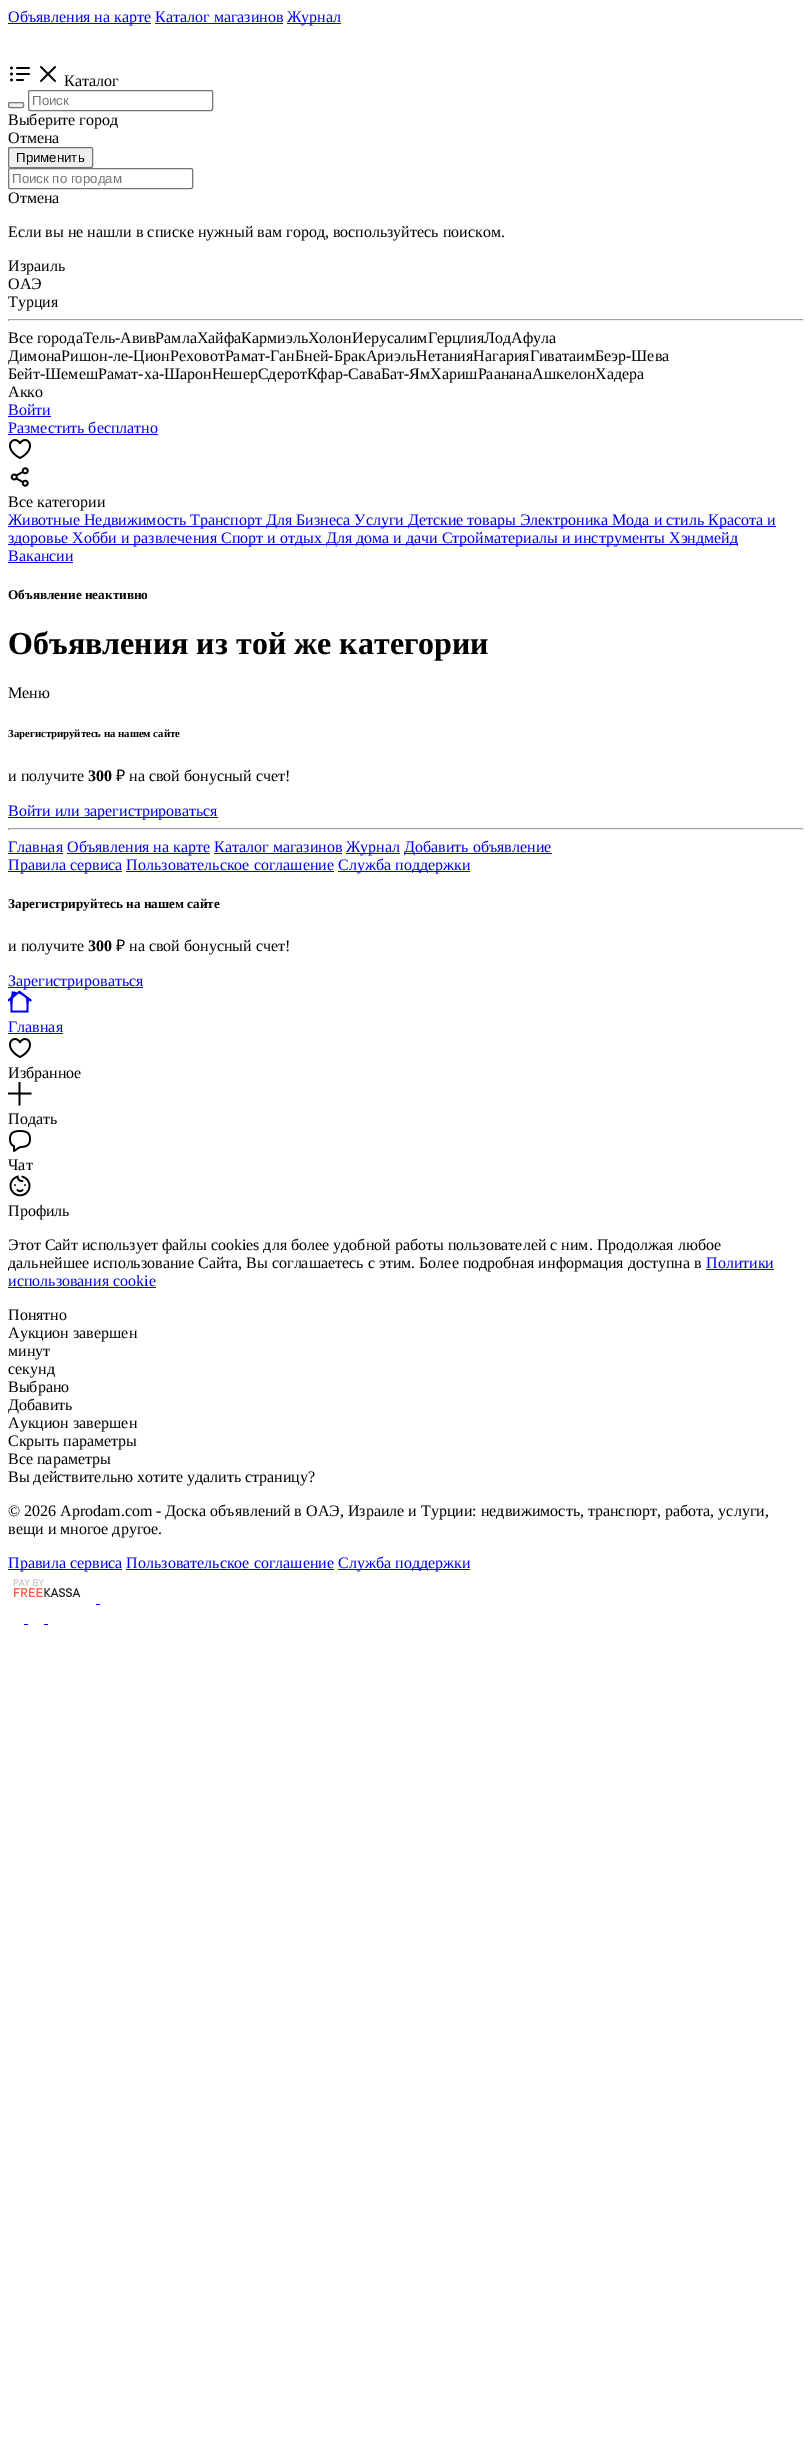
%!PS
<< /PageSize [812 2446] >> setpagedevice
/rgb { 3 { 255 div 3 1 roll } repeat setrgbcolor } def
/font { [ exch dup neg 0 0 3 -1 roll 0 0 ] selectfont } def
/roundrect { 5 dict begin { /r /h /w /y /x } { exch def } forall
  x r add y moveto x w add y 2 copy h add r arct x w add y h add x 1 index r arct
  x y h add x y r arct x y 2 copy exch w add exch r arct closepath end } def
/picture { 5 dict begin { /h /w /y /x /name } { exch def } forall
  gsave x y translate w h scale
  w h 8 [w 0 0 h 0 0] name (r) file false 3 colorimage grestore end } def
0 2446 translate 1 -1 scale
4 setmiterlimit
255 255 255 rgb
0 0 812 2446 rectfill
[
  [8 23 143 1 0 0 238]
  [287 23 54 1 0 0 238]
  [155 23 128 1 0 0 238]
] { aload pop rgb rectfill } forall
(img/1.rgb) 10 66 20 16 picture
(img/2.rgb) 40 66 16 16 picture
239 239 239 rgb
8.5 102.5 15 5 1.5 roundrect gsave fill grestore
118 118 118 rgb
stroke
28.5 90.5 184 20 1.5 roundrect stroke
239 239 239 rgb
8.5 147.5 84 20 1.5 roundrect gsave fill grestore
118 118 118 rgb
stroke
8.5 168.5 184 20 1.5 roundrect stroke
[
  [8 319 796 1 159 159 159]
  [803 319 1 2 238 238 238]
  [8 320 796 1 238 238 238]
  [8 319 1 2 159 159 159]
  [8 416 43 1 0 0 238]
  [8 434 150 1 0 0 238]
] { aload pop rgb rectfill } forall
(img/3.rgb) 9 439 22 20 picture
(img/4.rgb) 10 467 19 20 picture
[
  [8 526 768 1 0 0 238]
  [8 544 730 1 0 0 238]
  [8 562 65 1 0 0 238]
  [8 817 210 1 0 0 238]
  [8 828 796 1 159 159 159]
  [803 828 1 2 238 238 238]
  [8 829 796 1 238 238 238]
  [8 828 1 2 159 159 159]
  [8 853 55 1 0 0 238]
  [67 853 143 1 0 0 238]
  [346 853 54 1 0 0 238]
  [404 853 148 1 0 0 238]
  [214 853 128 1 0 0 238]
  [8 871 114 1 0 0 238]
  [338 871 132 1 0 0 238]
  [126 871 208 1 0 0 238]
  [8 987 135 1 0 0 238]
] { aload pop rgb rectfill } forall
(img/5.rgb) 8 990 24 23 picture
8 1033 55 1 rectfill
(img/3.rgb) 9 1038 22 20 picture
(img/6.rgb) 8 1082 24 24 picture
(img/7.rgb) 9 1130 22 22 picture
(img/8.rgb) 9 1175 22 22 picture
[
  [706 1269 68 1 0 0 238]
  [8 1287 148 1 0 0 238]
  [8 1569 114 1 0 0 238]
  [338 1569 132 1 0 0 238]
  [126 1569 208 1 0 0 238]
] { aload pop rgb rectfill } forall
(img/9.rgb) 13 1579 68 19 picture
[
  [96 1604 4 1 0 0 238]
  [24 1624 4 1 0 0 238]
  [44 1624 4 1 0 0 238]
] { aload pop rgb rectfill } forall
/LiberationSerif-Regular 16 font
8 22 moveto (Объявления на карте Каталог магазинов) show
287 22 moveto (Журнал) show
0 0 0 rgb
64 86 moveto (Каталог) show
/LiberationSans-Regular 13.25 font
117 117 117 rgb
32 105 moveto (Поиск) show
/LiberationSerif-Regular 16 font
0 0 0 rgb
8 125 moveto (Выберите город) show
8 143 moveto (Отмена) show
/LiberationSans-Regular 13.25 font
16 162 moveto (Применить) show
117 117 117 rgb
12 183 moveto (Поиск по городам) show
/LiberationSerif-Regular 16 font
0 0 0 rgb
[
  [(Отмена) 8 203]
  [(Если вы не нашли в списке нужный вам город, воспользуйтесь поиском.) 8 237]
  [(Израиль) 8 271]
  [(ОАЭ) 8 289]
  [(Турция) 8 307]
  [(Все городаТель-АвивРамлаХайфаКармиэльХолонИерусалимГерцлияЛодАфула) 8 343]
  [(ДимонаРишон-ле-ЦионРеховотРамат-ГанБней-БракАриэльНетанияНагарияГиватаимБеэр-Шева) 8 361]
  [(Бейт-ШемешРамат-ха-ШаронНешерСдеротКфар-СаваБат-ЯмХаришРаананаАшкелонХадера) 8 379]
  [(Акко) 8 397]
] { aload pop moveto show } forall
0 0 238 rgb
8 415 moveto (Войти) show
8 433 moveto (Разместить бесплатно) show
0 0 0 rgb
8 507 moveto (Все категории) show
0 0 238 rgb
[
  [(Животные Недвижимость Транспорт Для Бизнеса Услуги Детские товары Электроника Мода и стиль Красота и) 8 525]
  [(здоровье Хобби и развлечения Спорт и отдых Для дома и дачи Стройматериалы и инструменты Хэндмейд) 8 543]
  [(Вакансии) 8 561]
] { aload pop moveto show } forall
/LiberationSerif-Bold 13.25 font
0 0 0 rgb
8 599 moveto (Объявление неактивно) show
/LiberationSerif-Bold 32 font
8 654 moveto (Объявления из той же категории) show
/LiberationSerif-Regular 16 font
8 698 moveto (Меню) show
/LiberationSerif-Bold 10.75 font
8 737 moveto (Зарегистрируйтесь на нашем сайте) show
/LiberationSerif-Regular 16 font
8 781 moveto (и получите) show
/LiberationSerif-Bold 16 font
88 781 moveto (300) show
/NotoSans-Regular 16 font
116 781 moveto (₽) show
/LiberationSerif-Regular 16 font
129 781 moveto (на свой бонусный счет!) show
0 0 238 rgb
[
  [(Войти или зарегистрироваться) 8 816]
  [(Главная) 8 852]
  [(Объявления на карте Каталог магазинов) 67 852]
  [(Журнал) 346 852]
  [(Добавить объявление) 404 852]
  [(Правила сервиса Пользовательское соглашение) 8 870]
  [(Служба поддержки) 338 870]
] { aload pop moveto show } forall
/LiberationSerif-Bold 13.25 font
0 0 0 rgb
8 908 moveto (Зарегистрируйтесь на нашем сайте) show
/LiberationSerif-Regular 16 font
8 951 moveto (и получите) show
/LiberationSerif-Bold 16 font
88 951 moveto (300) show
/NotoSans-Regular 16 font
116 951 moveto (₽) show
/LiberationSerif-Regular 16 font
129 951 moveto (на свой бонусный счет!) show
0 0 238 rgb
8 986 moveto (Зарегистрироваться) show
8 1032 moveto (Главная) show
0 0 0 rgb
[
  [(Избранное) 8 1078]
  [(Подать) 8 1124]
  [(Чат) 8 1170]
  [(Профиль) 8 1216]
  [(Этот Сайт использует файлы cookies для более удобной работы пользователей с ним. Продолжая любое) 8 1250]
  [(дальнейшее использование Сайта, Вы соглашаетесь с этим. Более подробная информация доступна в) 8 1268]
] { aload pop moveto show } forall
0 0 238 rgb
706 1268 moveto (Политики) show
8 1286 moveto (использования cookie) show
0 0 0 rgb
[
  [(Понятно) 8 1320]
  [(Аукцион завершен) 8 1338]
  [(минут) 8 1356]
  [(секунд) 8 1374]
  [(Выбрано) 8 1392]
  [(Добавить) 8 1410]
  [(Аукцион завершен) 8 1428]
  [(Скрыть параметры) 8 1446]
  [(Все параметры) 8 1464]
  [(Вы действительно хотите удалить страницу?) 8 1482]
  [(© 2026 Aprodam.com - Доска объявлений в ОАЭ, Израиле и Турции: недвижимость, транспорт, работа, услуги,) 8 1516]
  [(вещи и многое другое.) 8 1534]
] { aload pop moveto show } forall
0 0 238 rgb
8 1568 moveto (Правила сервиса Пользовательское соглашение) show
338 1568 moveto (Служба поддержки) show
showpage
